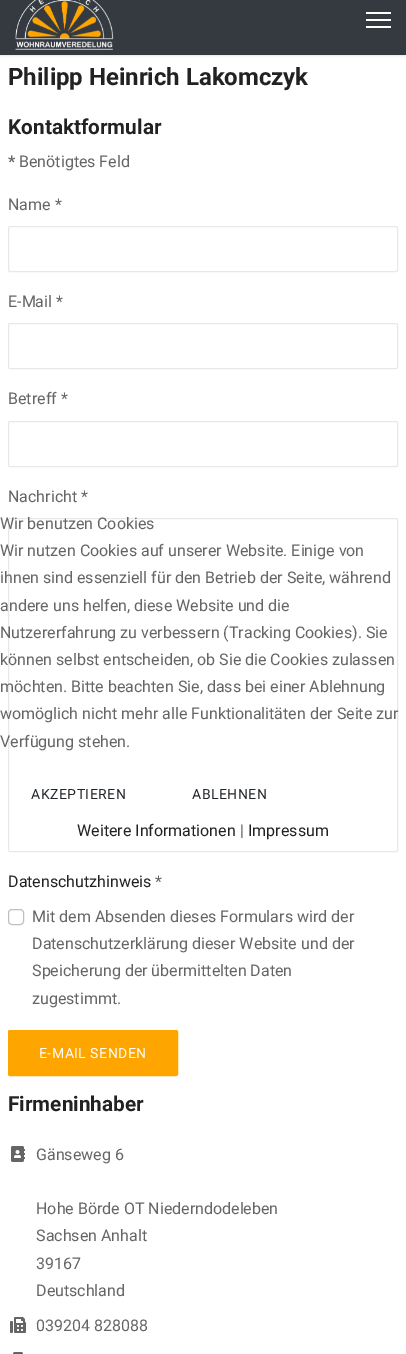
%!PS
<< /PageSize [406 1354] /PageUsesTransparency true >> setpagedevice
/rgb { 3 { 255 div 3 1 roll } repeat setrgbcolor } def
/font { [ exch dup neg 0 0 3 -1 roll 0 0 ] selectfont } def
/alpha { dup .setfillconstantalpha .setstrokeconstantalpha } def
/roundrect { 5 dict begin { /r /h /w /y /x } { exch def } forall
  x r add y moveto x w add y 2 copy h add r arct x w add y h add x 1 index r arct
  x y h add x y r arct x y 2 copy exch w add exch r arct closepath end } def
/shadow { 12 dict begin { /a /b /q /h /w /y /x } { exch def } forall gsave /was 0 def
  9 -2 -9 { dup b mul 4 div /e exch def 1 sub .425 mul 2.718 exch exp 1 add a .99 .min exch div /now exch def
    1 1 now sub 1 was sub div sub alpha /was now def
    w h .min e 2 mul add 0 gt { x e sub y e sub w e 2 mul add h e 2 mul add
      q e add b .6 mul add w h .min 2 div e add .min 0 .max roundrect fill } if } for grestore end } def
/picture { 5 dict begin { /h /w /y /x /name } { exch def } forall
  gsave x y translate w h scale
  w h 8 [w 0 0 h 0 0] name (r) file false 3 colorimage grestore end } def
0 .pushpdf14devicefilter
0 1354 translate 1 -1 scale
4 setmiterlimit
255 255 255 rgb
0 0 406 1354 rectfill
0 0 0 rgb
0 -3 406 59 0 1 0.1 shadow
52 58 64 rgb
0 0 406 55 rectfill
(img/1.rgb) 15 0 99 50 picture
[
  [366 12 25 2 255 255 255]
  [366 19 25 2 255 255 255]
  [366 26 25 2 255 255 255]
] { aload pop rgb rectfill } forall
230 233 235 rgb
8.5 226.5 389 45 1.5 roundrect stroke
8.5 323.5 389 45 1.5 roundrect stroke
8.5 421.5 389 45 1.5 roundrect stroke
8.5 518.5 389 333 1.5 roundrect stroke
191 191 191 rgb
8.5 909.5 15 15 3.5 roundrect stroke
255 165 0 rgb
8.5 1030.5 169 45 1.5 roundrect gsave fill grestore
stroke
(img/2.rgb) 11 1146 14 16 picture
(img/3.rgb) 10 1317 16 16 picture
(img/4.rgb) 13 1352 10 2 picture
/Roboto-Bold 24 font
34 34 34 rgb
8 85 moveto (Philipp Heinrich Lakomczyk) show
/Roboto-Bold 20.75 font
8 134 moveto (Kontaktformular) show
/Roboto-Bold 16 font
101 101 101 rgb
8 167 moveto (*) show
/Roboto-Regular 16 font
[
  [(Benötigtes Feld) 19 167]
  [(Name *) 8 210]
  [(E-Mail *) 8 307]
  [(Betreff *) 8 404]
  [(Nachricht *) 8 502]
] { aload pop moveto show } forall
34 34 34 rgb
8 887 moveto (Datenschutzhinweis) show
101 101 101 rgb
[
  [(*) 155 887]
  [(Mit dem Absenden dieses Formulars wird der) 32 922]
  [(Datenschutzerklärung dieser Website und der) 32 949]
  [(Speicherung der übermittelten Daten) 32 976]
  [(zugestimmt.) 32 1004]
] { aload pop moveto show } forall
/Roboto-Regular 14 font
255 255 255 rgb
39 1058 moveto 0.5 0 (E-MAIL SENDEN) ashow
/Roboto-Bold 20.75 font
34 34 34 rgb
8 1111 moveto (Firmeninhaber) show
/Roboto-Regular 16 font
101 101 101 rgb
[
  [(Gänseweg 6) 36 1160]
  [(Hohe Börde OT Niederndodeleben) 36 1214]
  [(Sachsen Anhalt) 36 1241]
  [(39167) 36 1269]
  [(Deutschland) 36 1296]
  [(039204 828088) 36 1331]
  [(Wir benutzen Cookies) 0 529]
  [(Wir nutzen Cookies auf unserer Website. Einige von) 0 556]
  [(ihnen sind essenziell für den Betrieb der Seite, während) 0 583]
  [(andere uns helfen, diese Website und die) 0 611]
  [(Nutzererfahrung zu verbessern \(Tracking Cookies\). Sie) 0 638]
  [(können selbst entscheiden, ob Sie die Cookies zulassen) 0 665]
  [(möchten. Bitte beachten Sie, dass bei einer Ablehnung) 0 692]
  [(womöglich nicht mehr alle Funktionalitäten der Seite zur) 0 719]
  [(Verfügung stehen.) 0 747]
] { aload pop moveto show } forall
/Roboto-Regular 14 font
33 37 41 rgb
31 799 moveto 0.5 0 (AKZEPTIEREN) ashow
192 799 moveto 0.5 0 (ABLEHNEN) ashow
/Roboto-Regular 16 font
34 34 34 rgb
77 836 moveto (Weitere Informationen) show
101 101 101 rgb
240 836 moveto (|) show
34 34 34 rgb
248 836 moveto (Impressum) show
.poppdf14devicefilter showpage
